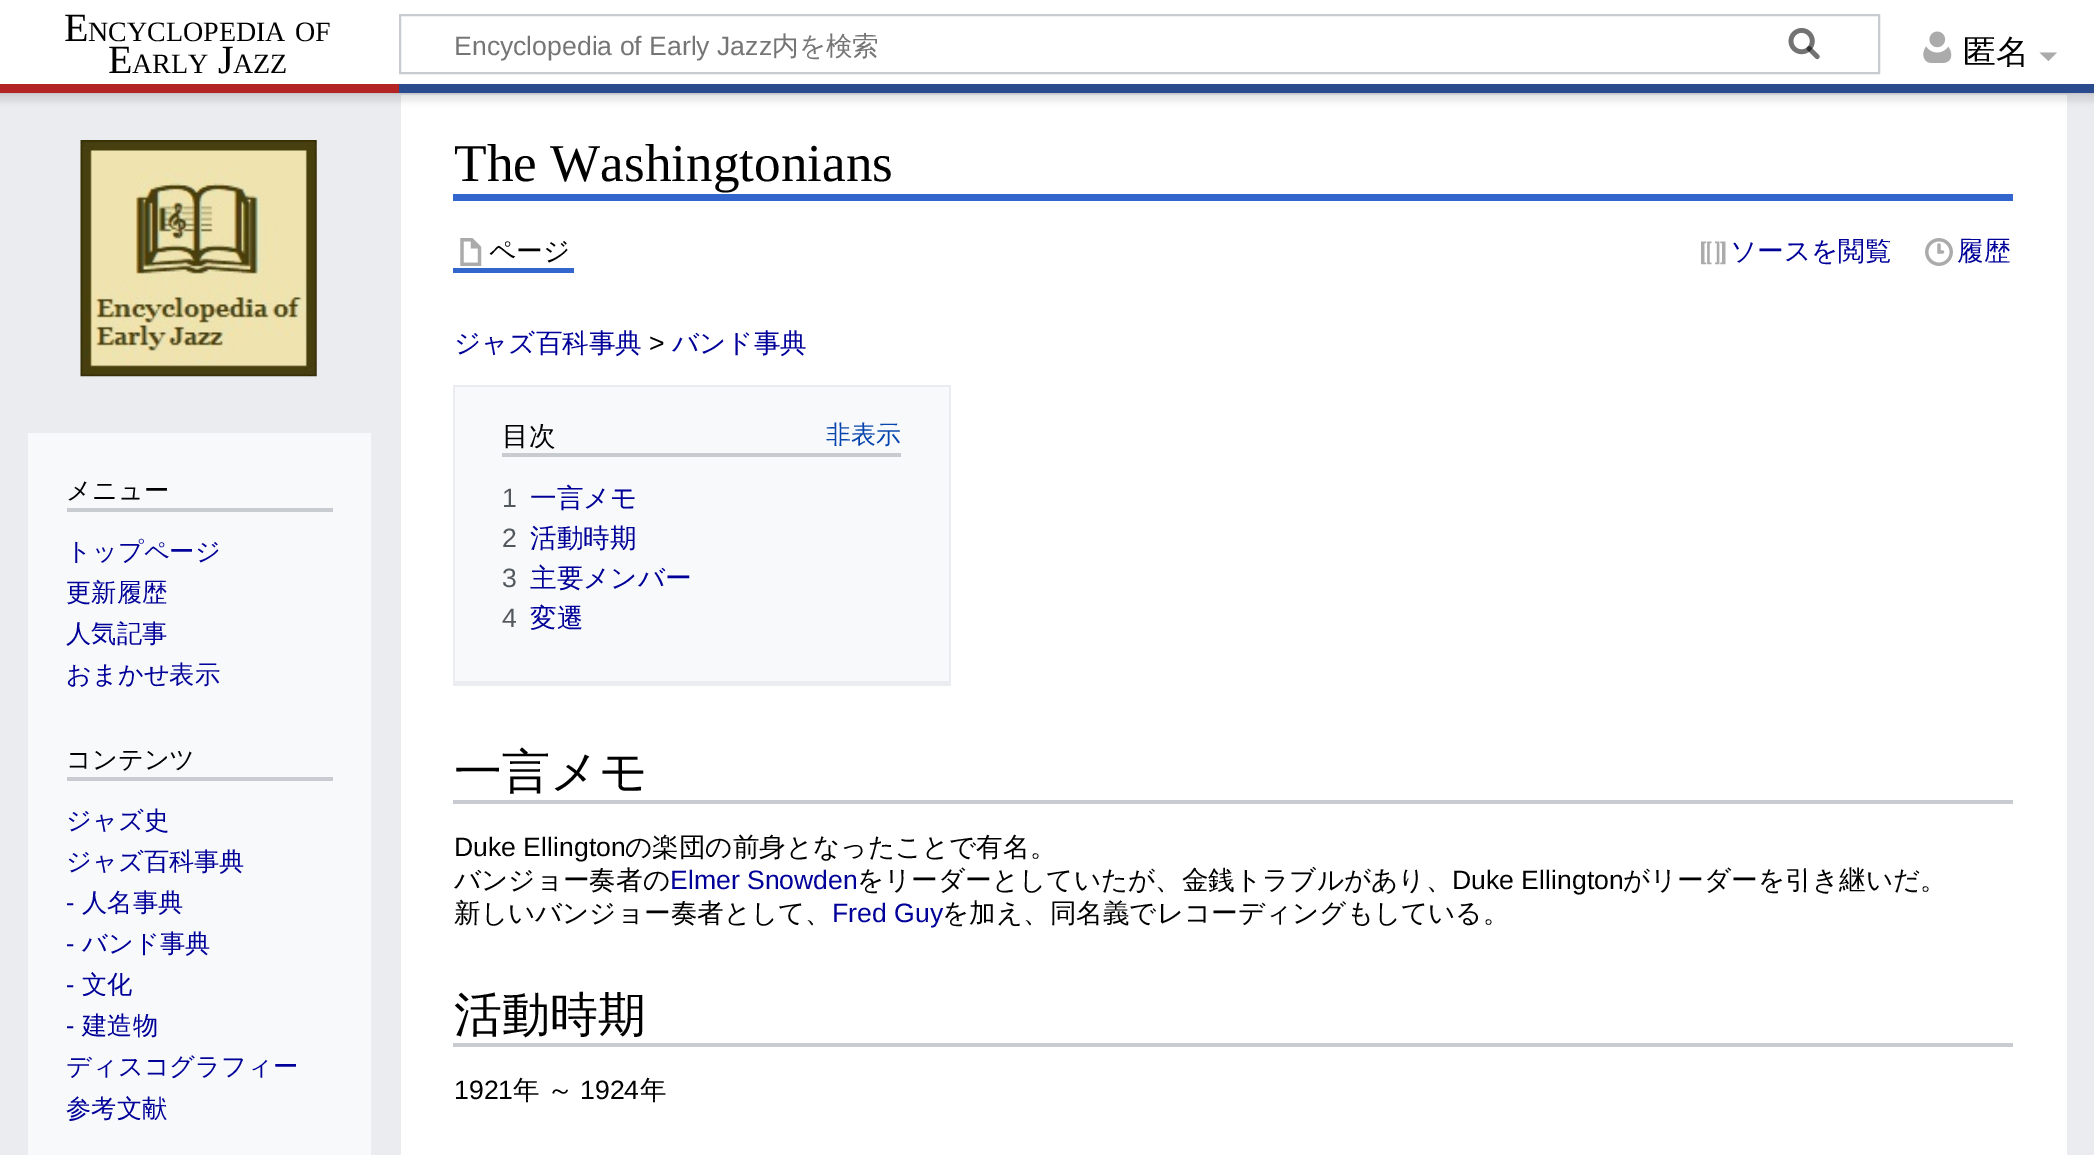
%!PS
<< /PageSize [2094 1155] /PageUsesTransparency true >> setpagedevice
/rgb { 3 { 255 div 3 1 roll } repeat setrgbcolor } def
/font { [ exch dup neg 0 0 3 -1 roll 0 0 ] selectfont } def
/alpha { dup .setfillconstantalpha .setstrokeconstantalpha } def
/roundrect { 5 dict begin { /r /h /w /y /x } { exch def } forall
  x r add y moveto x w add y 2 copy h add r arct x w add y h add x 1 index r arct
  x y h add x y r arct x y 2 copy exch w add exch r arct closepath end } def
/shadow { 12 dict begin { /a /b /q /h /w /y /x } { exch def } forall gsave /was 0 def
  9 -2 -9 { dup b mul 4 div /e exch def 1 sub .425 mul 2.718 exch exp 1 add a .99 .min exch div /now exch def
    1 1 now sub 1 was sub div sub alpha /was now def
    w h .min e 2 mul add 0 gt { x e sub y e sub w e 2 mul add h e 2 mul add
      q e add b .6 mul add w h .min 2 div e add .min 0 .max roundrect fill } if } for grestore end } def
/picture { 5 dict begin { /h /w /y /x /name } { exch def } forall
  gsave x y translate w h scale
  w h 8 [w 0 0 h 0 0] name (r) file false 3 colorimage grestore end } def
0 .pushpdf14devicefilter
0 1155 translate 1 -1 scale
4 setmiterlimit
234 236 240 rgb
0 0 2094 1155 rectfill
255 255 255 rgb
401 95 1666 1060 rectfill
0 0 0 rgb
0 84 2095 9 0 2 0.2 shadow
-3 86 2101 16 0 2.5 0.07 shadow
255 255 255 rgb
0 0 2094 84 rectfill
200 204 209 rgb
2 setlinewidth
400 15 1479 58 rectstroke
(img/1.rgb) 1788 28 32 32 picture
(img/2.rgb) 1788 28 32 32 picture
(img/3.rgb) 1923 31 29 32 picture
171 171 171 rgb
2057 52.5 moveto 2048.5 61 lineto 2039.5 52.5 lineto closepath fill
179 36 36 rgb
0 84 399 9 rectfill
42 75 141 rgb
399 84 1695 9 rectfill
(img/4.rgb) 80 140 237 237 picture
[
  [28 433 343 722 248 249 250]
  [67 508 266 4 200 204 209]
  [67 777 266 4 200 204 209]
  [453 194 1560 7 51 102 204]
  [453 268 121 5 51 102 204]
] { aload pop rgb rectfill } forall
(img/5.rgb) 460 238 22 28 picture
(img/6.rgb) 1701 241 25 24 picture
(img/7.rgb) 1925 238 28 28 picture
[
  [455 387 494 294 248 249 250]
  [453 385 497 2 234 236 240]
  [949 385 2 301 234 236 240]
  [453 681 497 5 234 236 240]
  [453 385 2 301 234 236 240]
  [502 453 399 4 200 204 209]
  [453 800 1560 4 200 204 209]
  [453 1043 1560 4 200 204 209]
] { aload pop rgb rectfill } forall
/LiberationSerif-Regular 40 font
0 0 0 rgb
64 41 moveto (E) show
/LiberationSerif-Regular 28 font
88 41 moveto (NCYCLOPEDIA) show
295 41 moveto (OF) show
/LiberationSerif-Regular 40 font
108 73 moveto (E) show
/LiberationSerif-Regular 28 font
132 73 moveto (ARLY) show
/LiberationSerif-Regular 40 font
218 73 moveto (J) show
/LiberationSerif-Regular 28 font
233 73 moveto (AZZ) show
/LiberationSans-Regular 26.6 font
117 117 117 rgb
454 55 moveto (Encyclopedia of Early Jazz) show
/WenQuanYiZenHei-Medium 26.6 font
772 55 moveto (内を検索) show
/WenQuanYiZenHei-Medium 33 font
0 0 0 rgb
1963 63 moveto (匿名) show
/WenQuanYiZenHei-Medium 25.25 font
66 499 moveto (メニュー) show
0 0 153 rgb
[
  [(トップページ) 66 560]
  [(更新履歴) 66 601]
  [(人気記事) 66 642]
  [(おまかせ表示) 66 683]
] { aload pop moveto show } forall
0 0 0 rgb
66 768 moveto (コンテンツ) show
0 0 153 rgb
66 829 moveto (ジャズ史) show
66 870 moveto (ジャズ百科事典) show
/LiberationSans-Regular 25.25 font
66 911 moveto (-) show
/WenQuanYiZenHei-Medium 25.25 font
82 911 moveto (人名事典) show
/LiberationSans-Regular 25.25 font
66 952 moveto (-) show
/WenQuanYiZenHei-Medium 25.25 font
82 952 moveto (バンド事典) show
/LiberationSans-Regular 25.25 font
66 993 moveto (-) show
/WenQuanYiZenHei-Medium 25.25 font
82 993 moveto (文化) show
/LiberationSans-Regular 25.25 font
66 1034 moveto (-) show
/WenQuanYiZenHei-Medium 25.25 font
[
  [(建造物) 82 1034]
  [(ディスコグラフィー) 66 1075]
  [(参考文献) 66 1117]
] { aload pop moveto show } forall
/LiberationSerif-Regular 53.25 font
0 0 0 rgb
454 181 moveto (The Washingtonians) show
/WenQuanYiZenHei-Medium 26.6 font
489 260 moveto (ページ) show
0 0 153 rgb
[
  [(ソースを閲覧) 1730 260]
  [(履歴) 1957 260]
  [(ジャズ百科事典) 454 352]
] { aload pop moveto show } forall
/LiberationSans-Regular 26.6 font
0 0 0 rgb
649 352 moveto (>) show
/WenQuanYiZenHei-Medium 26.6 font
0 0 153 rgb
672 352 moveto (バンド事典) show
0 0 0 rgb
502 445 moveto (目次) show
/WenQuanYiZenHei-Medium 25 font
6 69 173 rgb
826 443 moveto (非表示) show
/LiberationSans-Regular 26.6 font
84 89 93 rgb
502 507 moveto (1) show
/WenQuanYiZenHei-Medium 26.6 font
0 0 153 rgb
530 507 moveto (一言メモ) show
/LiberationSans-Regular 26.6 font
84 89 93 rgb
502 547 moveto (2) show
/WenQuanYiZenHei-Medium 26.6 font
0 0 153 rgb
530 547 moveto (活動時期) show
/LiberationSans-Regular 26.6 font
84 89 93 rgb
502 587 moveto (3) show
/WenQuanYiZenHei-Medium 26.6 font
0 0 153 rgb
530 587 moveto (主要メンバー) show
/LiberationSans-Regular 26.6 font
84 89 93 rgb
502 627 moveto (4) show
/WenQuanYiZenHei-Medium 26.6 font
0 0 153 rgb
530 627 moveto (変遷) show
/WenQuanYiZenHei-Medium 48 font
0 0 0 rgb
454 788 moveto (一言メモ) show
/LiberationSans-Regular 26.6 font
454 856 moveto (Duke Ellington) show
/WenQuanYiZenHei-Medium 26.6 font
625 856 moveto (の楽団の前身となったことで有名。) show
454 889 moveto (バンジョー奏者の) show
/LiberationSans-Regular 26.6 font
0 0 153 rgb
670 889 moveto (Elmer Snowden) show
/WenQuanYiZenHei-Medium 26.6 font
0 0 0 rgb
857 889 moveto (をリーダーとしていたが、金銭トラブルがあり、) show
/LiberationSans-Regular 26.6 font
1452 889 moveto (Duke Ellington) show
/WenQuanYiZenHei-Medium 26.6 font
1623 889 moveto (がリーダーを引き継いだ。) show
454 922 moveto (新しいバンジョー奏者として、) show
/LiberationSans-Regular 26.6 font
0 0 153 rgb
832 922 moveto (Fred Guy) show
/WenQuanYiZenHei-Medium 26.6 font
0 0 0 rgb
942 922 moveto (を加え、同名義でレコーディングもしている。) show
/WenQuanYiZenHei-Medium 48 font
454 1031 moveto (活動時期) show
/LiberationSans-Regular 26.6 font
454 1099 moveto (1921) show
/WenQuanYiZenHei-Medium 26.6 font
513 1099 moveto -1 0 32 (年 ～) widthshow
/LiberationSans-Regular 26.6 font
580 1099 moveto (1924) show
/WenQuanYiZenHei-Medium 26.6 font
640 1099 moveto (年) show
.poppdf14devicefilter showpage
